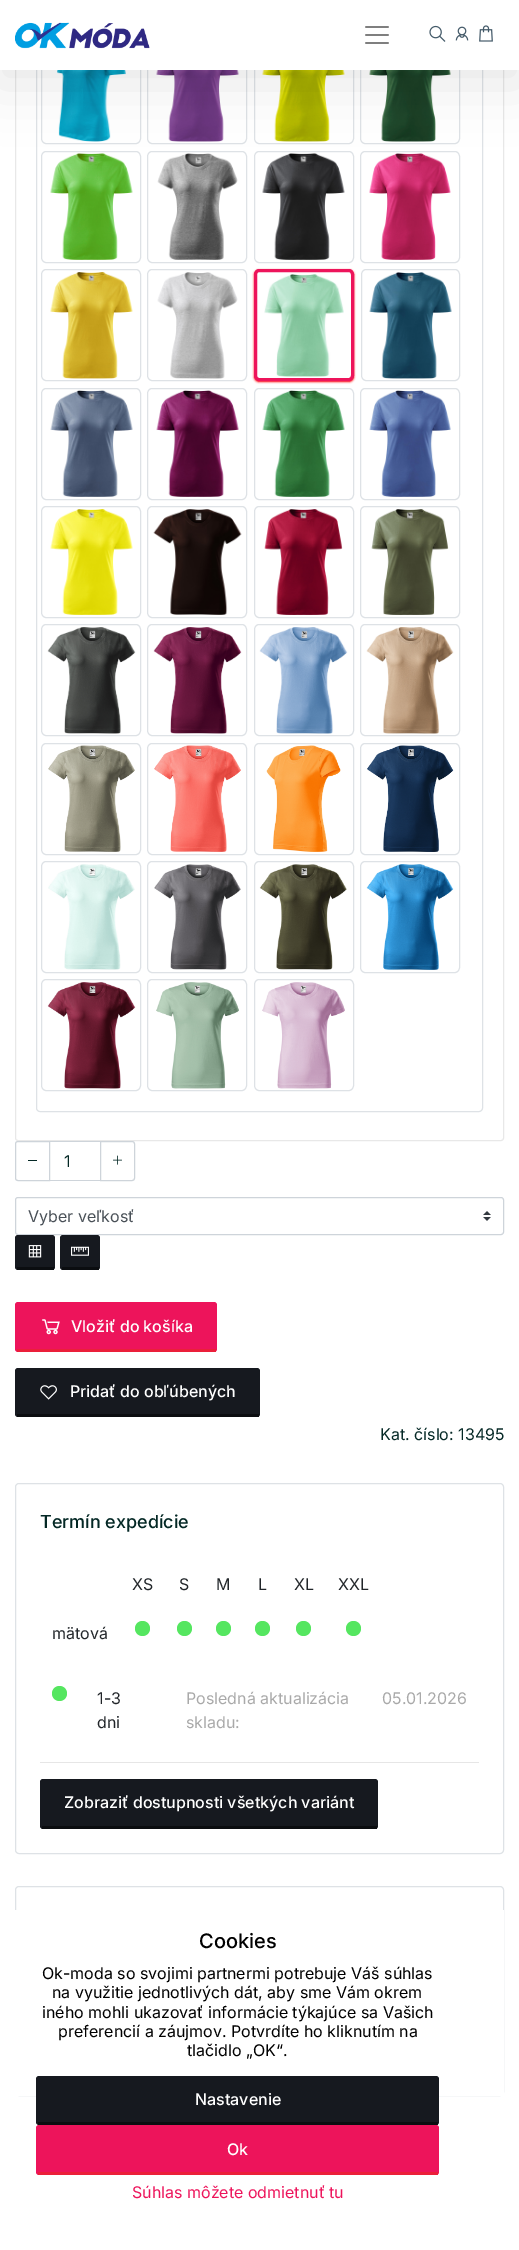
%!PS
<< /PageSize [519 2250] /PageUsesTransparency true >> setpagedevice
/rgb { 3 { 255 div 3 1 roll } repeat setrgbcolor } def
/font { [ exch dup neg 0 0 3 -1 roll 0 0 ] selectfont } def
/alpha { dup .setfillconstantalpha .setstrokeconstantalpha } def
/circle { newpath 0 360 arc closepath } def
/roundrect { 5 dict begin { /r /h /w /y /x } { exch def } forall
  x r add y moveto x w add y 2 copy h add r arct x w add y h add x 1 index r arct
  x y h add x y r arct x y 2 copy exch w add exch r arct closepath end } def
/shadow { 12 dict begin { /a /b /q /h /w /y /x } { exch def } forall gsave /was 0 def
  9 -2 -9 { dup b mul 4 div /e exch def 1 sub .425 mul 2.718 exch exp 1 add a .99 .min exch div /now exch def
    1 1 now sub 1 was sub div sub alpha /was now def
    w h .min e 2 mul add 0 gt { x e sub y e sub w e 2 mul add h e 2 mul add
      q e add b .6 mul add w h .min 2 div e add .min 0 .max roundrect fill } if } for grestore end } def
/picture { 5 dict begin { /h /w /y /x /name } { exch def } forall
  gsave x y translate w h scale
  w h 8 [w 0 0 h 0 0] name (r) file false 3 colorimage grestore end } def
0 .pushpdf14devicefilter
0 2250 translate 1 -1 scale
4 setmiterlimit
255 255 255 rgb
0 0 519 2250 rectfill
232 232 232 rgb
15.5 -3.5 488 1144 2.5 roundrect stroke
222 226 230 rgb
36.5 -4.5 446 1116 3.5 roundrect stroke
46 32.5 moveto 136 32.5 lineto 138.5 32.5 140.5 35 140.5 37.5 curveto 140.5 138.5 lineto 140.5 141 138.5 143.5 136 143.5 curveto 46 143.5 lineto 43.5 143.5 41.5 141 41.5 138.5 curveto 41.5 37.5 lineto 41.5 35 43.5 32.5 46 32.5 curveto closepath stroke
(img/6.rgb) 57 70 69 72 picture
152 32.5 moveto 242 32.5 lineto 244.5 32.5 246.5 35 246.5 37.5 curveto 246.5 138.5 lineto 246.5 141 244.5 143.5 242 143.5 curveto 152 143.5 lineto 149.5 143.5 147.5 141 147.5 138.5 curveto 147.5 37.5 lineto 147.5 35 149.5 32.5 152 32.5 curveto closepath stroke
(img/7.rgb) 156 70 83 72 picture
259 32.5 moveto 349 32.5 lineto 351.5 32.5 353.5 35 353.5 37.5 curveto 353.5 138.5 lineto 353.5 141 351.5 143.5 349 143.5 curveto 259 143.5 lineto 256.5 143.5 254.5 141 254.5 138.5 curveto 254.5 37.5 lineto 254.5 35 256.5 32.5 259 32.5 curveto closepath stroke
(img/8.rgb) 262 70 83 72 picture
365 32.5 moveto 455 32.5 lineto 457.5 32.5 459.5 35 459.5 37.5 curveto 459.5 138.5 lineto 459.5 141 457.5 143.5 455 143.5 curveto 365 143.5 lineto 362.5 143.5 360.5 141 360.5 138.5 curveto 360.5 37.5 lineto 360.5 35 362.5 32.5 365 32.5 curveto closepath stroke
(img/9.rgb) 369 70 82 72 picture
46 151.5 moveto 136 151.5 lineto 138.5 151.5 140.5 154 140.5 156.5 curveto 140.5 257.5 lineto 140.5 260 138.5 262.5 136 262.5 curveto 46 262.5 lineto 43.5 262.5 41.5 260 41.5 257.5 curveto 41.5 156.5 lineto 41.5 154 43.5 151.5 46 151.5 curveto closepath stroke
(img/10.rgb) 50 153 83 107 picture
152 151.5 moveto 242 151.5 lineto 244.5 151.5 246.5 154 246.5 156.5 curveto 246.5 257.5 lineto 246.5 260 244.5 262.5 242 262.5 curveto 152 262.5 lineto 149.5 262.5 147.5 260 147.5 257.5 curveto 147.5 156.5 lineto 147.5 154 149.5 151.5 152 151.5 curveto closepath stroke
(img/11.rgb) 157 153 81 107 picture
259 151.5 moveto 349 151.5 lineto 351.5 151.5 353.5 154 353.5 156.5 curveto 353.5 257.5 lineto 353.5 260 351.5 262.5 349 262.5 curveto 259 262.5 lineto 256.5 262.5 254.5 260 254.5 257.5 curveto 254.5 156.5 lineto 254.5 154 256.5 151.5 259 151.5 curveto closepath stroke
(img/12.rgb) 262 153 83 107 picture
365 151.5 moveto 455 151.5 lineto 457.5 151.5 459.5 154 459.5 156.5 curveto 459.5 257.5 lineto 459.5 260 457.5 262.5 455 262.5 curveto 365 262.5 lineto 362.5 262.5 360.5 260 360.5 257.5 curveto 360.5 156.5 lineto 360.5 154 362.5 151.5 365 151.5 curveto closepath stroke
(img/13.rgb) 369 153 82 107 picture
0 0 0 rgb
-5 5 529 80 0 27.5 0.09 shadow
255 255 255 rgb
0 0 519 70 rectfill
(img/1.rgb) 15 22 135 27 picture
(img/2.rgb) 365 26 24 18 picture
(img/3.rgb) 429 25 17 17 picture
(img/4.rgb) 455 26 14 15 picture
(img/5.rgb) 479 25 14 17 picture
222 226 230 rgb
46 269.5 moveto 136 269.5 lineto 138.5 269.5 140.5 272 140.5 274.5 curveto 140.5 375.5 lineto 140.5 378 138.5 380.5 136 380.5 curveto 46 380.5 lineto 43.5 380.5 41.5 378 41.5 375.5 curveto 41.5 274.5 lineto 41.5 272 43.5 269.5 46 269.5 curveto closepath stroke
(img/14.rgb) 50 272 83 107 picture
152 269.5 moveto 242 269.5 lineto 244.5 269.5 246.5 272 246.5 274.5 curveto 246.5 375.5 lineto 246.5 378 244.5 380.5 242 380.5 curveto 152 380.5 lineto 149.5 380.5 147.5 378 147.5 375.5 curveto 147.5 274.5 lineto 147.5 272 149.5 269.5 152 269.5 curveto closepath stroke
(img/15.rgb) 157 272 81 107 picture
gsave
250 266 moveto 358 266 lineto 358 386 lineto 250 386 lineto closepath 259 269 moveto 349 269 lineto 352 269 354 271.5 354 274.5 curveto 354 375.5 lineto 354 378.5 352 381 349 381 curveto 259 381 lineto 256 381 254 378.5 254 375.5 curveto 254 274.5 lineto 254 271.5 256 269 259 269 curveto closepath eoclip newpath
255 0 0 rgb
254 270 100 112 5 1 1 shadow
grestore
237 20 91 rgb
3 setlinewidth
259 270.5 moveto 349 270.5 lineto 351 270.5 352.5 272.5 352.5 274.5 curveto 352.5 375.5 lineto 352.5 377.5 351 379.5 349 379.5 curveto 259 379.5 lineto 257 379.5 255.5 377.5 255.5 375.5 curveto 255.5 274.5 lineto 255.5 272.5 257 270.5 259 270.5 curveto closepath stroke
(img/16.rgb) 264 274 80 103 picture
222 226 230 rgb
1 setlinewidth
366 269.5 moveto 455 269.5 lineto 457.5 269.5 459.5 272 459.5 274.5 curveto 459.5 375.5 lineto 459.5 378 457.5 380.5 455 380.5 curveto 366 380.5 lineto 363.5 380.5 361.5 378 361.5 375.5 curveto 361.5 274.5 lineto 361.5 272 363.5 269.5 366 269.5 curveto closepath stroke
(img/17.rgb) 369 272 83 107 picture
46 388.5 moveto 136 388.5 lineto 138.5 388.5 140.5 391 140.5 393.5 curveto 140.5 494.5 lineto 140.5 497 138.5 499.5 136 499.5 curveto 46 499.5 lineto 43.5 499.5 41.5 497 41.5 494.5 curveto 41.5 393.5 lineto 41.5 391 43.5 388.5 46 388.5 curveto closepath stroke
(img/18.rgb) 50 390 83 107 picture
152 388.5 moveto 242 388.5 lineto 244.5 388.5 246.5 391 246.5 393.5 curveto 246.5 494.5 lineto 246.5 497 244.5 499.5 242 499.5 curveto 152 499.5 lineto 149.5 499.5 147.5 497 147.5 494.5 curveto 147.5 393.5 lineto 147.5 391 149.5 388.5 152 388.5 curveto closepath stroke
(img/19.rgb) 156 390 83 107 picture
259 388.5 moveto 349 388.5 lineto 351.5 388.5 353.5 391 353.5 393.5 curveto 353.5 494.5 lineto 353.5 497 351.5 499.5 349 499.5 curveto 259 499.5 lineto 256.5 499.5 254.5 497 254.5 494.5 curveto 254.5 393.5 lineto 254.5 391 256.5 388.5 259 388.5 curveto closepath stroke
(img/20.rgb) 262 390 83 107 picture
365 388.5 moveto 455 388.5 lineto 457.5 388.5 459.5 391 459.5 393.5 curveto 459.5 494.5 lineto 459.5 497 457.5 499.5 455 499.5 curveto 365 499.5 lineto 362.5 499.5 360.5 497 360.5 494.5 curveto 360.5 393.5 lineto 360.5 391 362.5 388.5 365 388.5 curveto closepath stroke
(img/21.rgb) 369 390 82 107 picture
46 506.5 moveto 136 506.5 lineto 138.5 506.5 140.5 509 140.5 511.5 curveto 140.5 612.5 lineto 140.5 615 138.5 617.5 136 617.5 curveto 46 617.5 lineto 43.5 617.5 41.5 615 41.5 612.5 curveto 41.5 511.5 lineto 41.5 509 43.5 506.5 46 506.5 curveto closepath stroke
(img/22.rgb) 50 509 83 106 picture
152 506.5 moveto 242 506.5 lineto 244.5 506.5 246.5 509 246.5 511.5 curveto 246.5 612.5 lineto 246.5 615 244.5 617.5 242 617.5 curveto 152 617.5 lineto 149.5 617.5 147.5 615 147.5 612.5 curveto 147.5 511.5 lineto 147.5 509 149.5 506.5 152 506.5 curveto closepath stroke
(img/23.rgb) 153 509 89 106 picture
259 506.5 moveto 349 506.5 lineto 351.5 506.5 353.5 509 353.5 511.5 curveto 353.5 612.5 lineto 353.5 615 351.5 617.5 349 617.5 curveto 259 617.5 lineto 256.5 617.5 254.5 615 254.5 612.5 curveto 254.5 511.5 lineto 254.5 509 256.5 506.5 259 506.5 curveto closepath stroke
(img/24.rgb) 264 509 79 106 picture
365 506.5 moveto 455 506.5 lineto 457.5 506.5 459.5 509 459.5 511.5 curveto 459.5 612.5 lineto 459.5 615 457.5 617.5 455 617.5 curveto 365 617.5 lineto 362.5 617.5 360.5 615 360.5 612.5 curveto 360.5 511.5 lineto 360.5 509 362.5 506.5 365 506.5 curveto closepath stroke
(img/25.rgb) 371 509 78 106 picture
46 624.5 moveto 136 624.5 lineto 138.5 624.5 140.5 627 140.5 629.5 curveto 140.5 730.5 lineto 140.5 733 138.5 735.5 136 735.5 curveto 46 735.5 lineto 43.5 735.5 41.5 733 41.5 730.5 curveto 41.5 629.5 lineto 41.5 627 43.5 624.5 46 624.5 curveto closepath stroke
(img/26.rgb) 47 627 89 107 picture
152 624.5 moveto 242 624.5 lineto 244.5 624.5 246.5 627 246.5 629.5 curveto 246.5 730.5 lineto 246.5 733 244.5 735.5 242 735.5 curveto 152 735.5 lineto 149.5 735.5 147.5 733 147.5 730.5 curveto 147.5 629.5 lineto 147.5 627 149.5 624.5 152 624.5 curveto closepath stroke
(img/27.rgb) 153 627 89 107 picture
259 624.5 moveto 349 624.5 lineto 351.5 624.5 353.5 627 353.5 629.5 curveto 353.5 730.5 lineto 353.5 733 351.5 735.5 349 735.5 curveto 259 735.5 lineto 256.5 735.5 254.5 733 254.5 730.5 curveto 254.5 629.5 lineto 254.5 627 256.5 624.5 259 624.5 curveto closepath stroke
(img/28.rgb) 259 627 89 107 picture
365 624.5 moveto 455 624.5 lineto 457.5 624.5 459.5 627 459.5 629.5 curveto 459.5 730.5 lineto 459.5 733 457.5 735.5 455 735.5 curveto 365 735.5 lineto 362.5 735.5 360.5 733 360.5 730.5 curveto 360.5 629.5 lineto 360.5 627 362.5 624.5 365 624.5 curveto closepath stroke
(img/29.rgb) 366 627 88 107 picture
46 743.5 moveto 136 743.5 lineto 138.5 743.5 140.5 746 140.5 748.5 curveto 140.5 849.5 lineto 140.5 852 138.5 854.5 136 854.5 curveto 46 854.5 lineto 43.5 854.5 41.5 852 41.5 849.5 curveto 41.5 748.5 lineto 41.5 746 43.5 743.5 46 743.5 curveto closepath stroke
(img/30.rgb) 48 745 87 107 picture
152 743.5 moveto 242 743.5 lineto 244.5 743.5 246.5 746 246.5 748.5 curveto 246.5 849.5 lineto 246.5 852 244.5 854.5 242 854.5 curveto 152 854.5 lineto 149.5 854.5 147.5 852 147.5 849.5 curveto 147.5 748.5 lineto 147.5 746 149.5 743.5 152 743.5 curveto closepath stroke
(img/31.rgb) 154 745 87 107 picture
259 743.5 moveto 349 743.5 lineto 351.5 743.5 353.5 746 353.5 748.5 curveto 353.5 849.5 lineto 353.5 852 351.5 854.5 349 854.5 curveto 259 854.5 lineto 256.5 854.5 254.5 852 254.5 849.5 curveto 254.5 748.5 lineto 254.5 746 256.5 743.5 259 743.5 curveto closepath stroke
(img/32.rgb) 266 745 75 107 picture
365 743.5 moveto 455 743.5 lineto 457.5 743.5 459.5 746 459.5 748.5 curveto 459.5 849.5 lineto 459.5 852 457.5 854.5 455 854.5 curveto 365 854.5 lineto 362.5 854.5 360.5 852 360.5 849.5 curveto 360.5 748.5 lineto 360.5 746 362.5 743.5 365 743.5 curveto closepath stroke
(img/33.rgb) 367 745 87 107 picture
46 861.5 moveto 136 861.5 lineto 138.5 861.5 140.5 864 140.5 866.5 curveto 140.5 967.5 lineto 140.5 970 138.5 972.5 136 972.5 curveto 46 972.5 lineto 43.5 972.5 41.5 970 41.5 967.5 curveto 41.5 866.5 lineto 41.5 864 43.5 861.5 46 861.5 curveto closepath stroke
(img/34.rgb) 48 864 87 106 picture
152 861.5 moveto 242 861.5 lineto 244.5 861.5 246.5 864 246.5 866.5 curveto 246.5 967.5 lineto 246.5 970 244.5 972.5 242 972.5 curveto 152 972.5 lineto 149.5 972.5 147.5 970 147.5 967.5 curveto 147.5 866.5 lineto 147.5 864 149.5 861.5 152 861.5 curveto closepath stroke
(img/35.rgb) 154 864 87 106 picture
259 861.5 moveto 349 861.5 lineto 351.5 861.5 353.5 864 353.5 866.5 curveto 353.5 967.5 lineto 353.5 970 351.5 972.5 349 972.5 curveto 259 972.5 lineto 256.5 972.5 254.5 970 254.5 967.5 curveto 254.5 866.5 lineto 254.5 864 256.5 861.5 259 861.5 curveto closepath stroke
(img/36.rgb) 259 864 88 106 picture
365 861.5 moveto 455 861.5 lineto 457.5 861.5 459.5 864 459.5 866.5 curveto 459.5 967.5 lineto 459.5 970 457.5 972.5 455 972.5 curveto 365 972.5 lineto 362.5 972.5 360.5 970 360.5 967.5 curveto 360.5 866.5 lineto 360.5 864 362.5 861.5 365 861.5 curveto closepath stroke
(img/37.rgb) 366 864 88 106 picture
46 979.5 moveto 136 979.5 lineto 138.5 979.5 140.5 982 140.5 984.5 curveto 140.5 1085.5 lineto 140.5 1088 138.5 1090.5 136 1090.5 curveto 46 1090.5 lineto 43.5 1090.5 41.5 1088 41.5 1085.5 curveto 41.5 984.5 lineto 41.5 982 43.5 979.5 46 979.5 curveto closepath stroke
(img/38.rgb) 47 982 89 107 picture
152 979.5 moveto 242 979.5 lineto 244.5 979.5 246.5 982 246.5 984.5 curveto 246.5 1085.5 lineto 246.5 1088 244.5 1090.5 242 1090.5 curveto 152 1090.5 lineto 149.5 1090.5 147.5 1088 147.5 1085.5 curveto 147.5 984.5 lineto 147.5 982 149.5 979.5 152 979.5 curveto closepath stroke
(img/39.rgb) 156 982 83 107 picture
259 979.5 moveto 349 979.5 lineto 351.5 979.5 353.5 982 353.5 984.5 curveto 353.5 1085.5 lineto 353.5 1088 351.5 1090.5 349 1090.5 curveto 259 1090.5 lineto 256.5 1090.5 254.5 1088 254.5 1085.5 curveto 254.5 984.5 lineto 254.5 982 256.5 979.5 259 979.5 curveto closepath stroke
(img/40.rgb) 262 982 83 107 picture
206 212 218 rgb
18 1141.5 moveto 49.5 1141.5 lineto 49.5 1180.5 lineto 18 1180.5 lineto 16.5 1180.5 15.5 1179.5 15.5 1178 curveto 15.5 1144 lineto 15.5 1142.5 16.5 1141.5 18 1141.5 curveto closepath stroke
[
  [28 1160 9 1 4 40 37]
  [50 1141 50 1 206 212 218]
  [50 1180 50 1 206 212 218]
] { aload pop rgb rectfill } forall
100.5 1141.5 moveto 132 1141.5 lineto 133.5 1141.5 134.5 1142.5 134.5 1144 curveto 134.5 1178 lineto 134.5 1179.5 133.5 1180.5 132 1180.5 curveto 100.5 1180.5 lineto closepath stroke
(img/41.rgb) 113 1155 9 10 picture
(img/42.rgb) 483 1211 8 10 picture
15.5 1197.5 488 37 2.5 roundrect stroke
22 25 31 rgb
15 1235 40 35 3 roundrect fill
11 13 16 rgb
17 1267 37 3 rectfill
(img/43.rgb) 28 1245 14 13 picture
22 25 31 rgb
60 1235 40 35 3 roundrect fill
11 13 16 rgb
62 1267 37 3 rectfill
(img/44.rgb) 71 1246 18 10 picture
237 20 91 rgb
15 1302 202 50 3 roundrect fill
235 31 58 rgb
17 1349 199 3 rectfill
(img/45.rgb) 42 1319 18 16 picture
22 25 31 rgb
15 1368 245 49 3 roundrect fill
11 13 16 rgb
17 1414 242 3 rectfill
(img/46.rgb) 40 1385 17 15 picture
222 226 230 rgb
15.5 1483.5 488 370 3.5 roundrect stroke
85 230 96 rgb
142.5 1628.5 7.5 circle fill
184.5 1628.5 7.5 circle fill
223.5 1628.5 7.5 circle fill
262.5 1628.5 7.5 circle fill
303.5 1628.5 7.5 circle fill
353.5 1628.5 7.5 circle fill
59.5 1693.5 7.5 circle fill
230 230 230 rgb
40 1762 439 1 rectfill
22 25 31 rgb
40 1779 338 50 3 roundrect fill
11 13 16 rgb
42 1826 335 3 rectfill
222 226 230 rgb
15.5 1886.5 488 209 3.5 roundrect stroke
255 255 255 rgb
15 1910 489 186 rectfill
22 25 31 rgb
36 2076 403 49 3 roundrect fill
11 13 16 rgb
38 2122 400 3 rectfill
237 20 91 rgb
36 2125 403 50 3 roundrect fill
235 31 58 rgb
38 2172 400 3 rectfill
/Inter-Regular 16 font
4 40 37 rgb
64 1167 moveto (1) show
73 80 87 rgb
28 1222 moveto (Vyber veľkosť) show
/Inter-Medium 16 font
255 255 255 rgb
71 1332 moveto (Vložiť do košíka) show
70 1397 moveto (Pridať do obľúbených) show
/Inter-Regular 16 font
4 40 37 rgb
380 1440 moveto (Kat. číslo: 13495) show
/Inter-Medium 18 font
40 1528 moveto (Termín expedície) show
/Inter-Regular 16 font
33 37 41 rgb
[
  [(XS) 132 1590]
  [(S) 179 1590]
  [(M) 216 1590]
  [(L) 258 1590]
  [(XL) 294 1590]
  [(XXL) 338 1590]
  [(mätová) 52 1639]
  [(1-3) 97 1704]
  [(dni) 97 1728]
] { aload pop moveto show } forall
169 169 169 rgb
[
  [(Posledná aktualizácia) 186 1704]
  [(skladu:) 186 1728]
  [(05.01.2026) 382 1704]
] { aload pop moveto show } forall
/Inter-Medium 16 font
255 255 255 rgb
64 1808 moveto (Zobraziť dostupnosti všetkých variánt) show
/Inter-Medium 20 font
0 0 0 rgb
199 1948 moveto (Cookies) show
/Inter-Regular 16 font
[
  [(Ok-moda so svojimi partnermi potrebuje Váš súhlas) 42 1979]
  [(na využitie jednotlivých dát, aby sme Vám okrem) 52 1998]
  [(iného mohli ukazovať informácie týkajúce sa Vašich) 42 2018]
  [(preferencií a záujmov. Potvrdíte ho kliknutím na) 58 2037]
  [(tlačidlo „OK“.) 187 2056]
] { aload pop moveto show } forall
/Inter-Medium 16 font
255 255 255 rgb
195 2105 moveto (Nastavenie) show
227 2155 moveto (Ok) show
/Inter-Regular 16 font
237 20 91 rgb
132 2198 moveto (Súhlas môžete odmietnuť tu) show
.poppdf14devicefilter showpage
